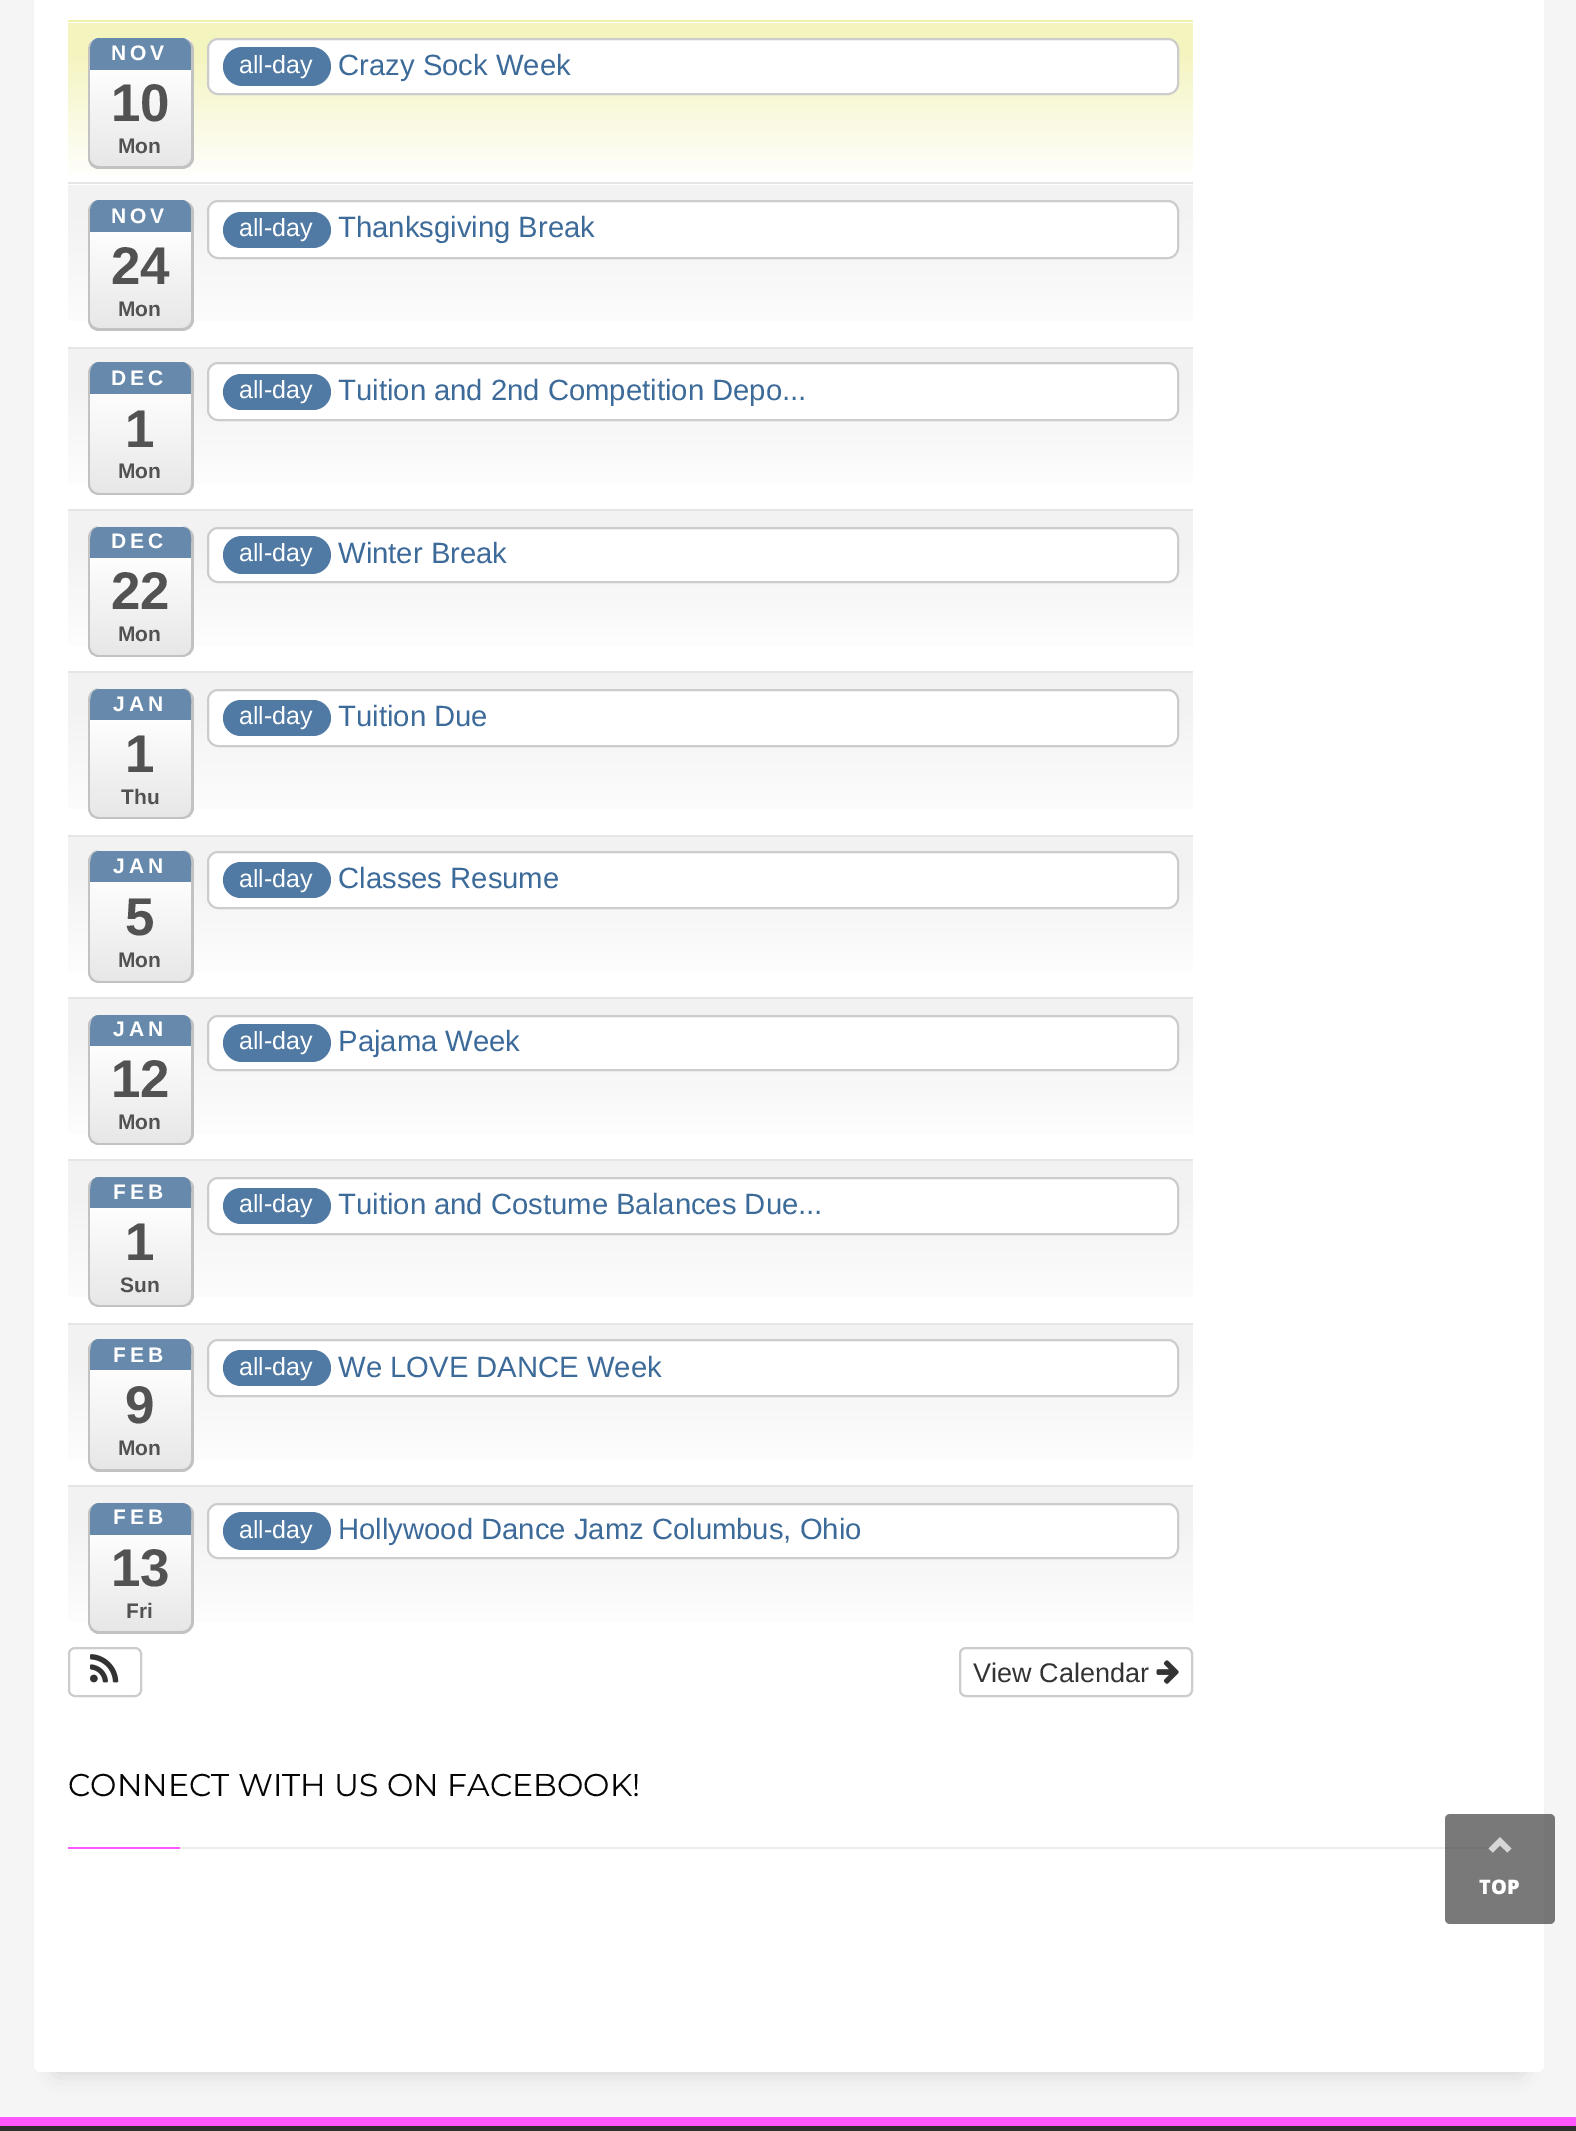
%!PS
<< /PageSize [1576 2131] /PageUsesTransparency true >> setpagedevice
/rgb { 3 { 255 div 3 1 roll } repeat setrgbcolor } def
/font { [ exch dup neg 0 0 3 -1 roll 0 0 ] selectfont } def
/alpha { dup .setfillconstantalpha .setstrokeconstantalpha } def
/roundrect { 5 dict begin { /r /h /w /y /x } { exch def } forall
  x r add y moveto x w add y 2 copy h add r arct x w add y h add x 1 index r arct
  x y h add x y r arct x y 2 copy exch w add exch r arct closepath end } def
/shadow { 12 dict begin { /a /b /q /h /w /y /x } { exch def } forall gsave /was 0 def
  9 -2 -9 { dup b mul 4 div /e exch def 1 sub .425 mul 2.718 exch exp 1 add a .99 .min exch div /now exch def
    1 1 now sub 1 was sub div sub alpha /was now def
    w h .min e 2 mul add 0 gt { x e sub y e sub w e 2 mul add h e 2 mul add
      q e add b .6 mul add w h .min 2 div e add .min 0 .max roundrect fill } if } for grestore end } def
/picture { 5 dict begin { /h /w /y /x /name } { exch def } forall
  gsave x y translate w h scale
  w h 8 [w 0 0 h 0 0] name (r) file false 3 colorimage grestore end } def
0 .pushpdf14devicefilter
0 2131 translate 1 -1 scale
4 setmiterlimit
245 245 245 rgb
0 0 1576 2131 rectfill
0 0 0 rgb
56 -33 1465 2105 0 11 0.15 shadow
255 255 255 rgb
34 -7 1510 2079 7 roundrect fill
gsave 68 23 moveto 1193 23 lineto 1193 177 lineto 68 177 lineto closepath clip newpath
<< /ShadingType 2 /ColorSpace /DeviceRGB /Coords [630 22 630 182] /Extend [true true] /Function << /FunctionType 3 /Domain [0 1] /Functions [<< /FunctionType 2 /Domain [0 1] /C0 [0.957 0.957 0.749] /C1 [0.957 0.957 0.749] /N 1 >> << /FunctionType 2 /Domain [0 1] /C0 [0.957 0.957 0.749] /C1 [1 1 1] /N 1 >>] /Bounds [0.18] /Encode [0 1 0 1] >> >> shfill grestore
240 240 169 rgb
68 20 1125 2 rectfill
gsave
88 38 106 131 11 roundrect clip newpath
gsave 90 38 moveto 191 38 lineto 191 167 lineto 90 167 lineto closepath clip newpath
<< /ShadingType 2 /ColorSpace /DeviceRGB /Coords [141 38 141 167] /Extend [true true] /Function << /FunctionType 3 /Domain [0 1] /Functions [<< /FunctionType 2 /Domain [0 1] /C0 [1 1 1] /C1 [1 1 1] /N 1 >> << /FunctionType 2 /Domain [0 1] /C0 [1 1 1] /C1 [0.906 0.906 0.906] /N 1 >>] /Bounds [0.21] /Encode [0 1 0 1] >> >> shfill grestore
grestore
194 194 194 rgb
99 38 moveto 182 38 lineto 188 38 194 43 194 50 curveto 194 158 lineto 194 164 188 169 182 169 curveto 99 169 lineto 93 169 88 164 88 158 curveto 88 50 lineto 88 43 93 38 99 38 curveto closepath 99 38 moveto 182 38 lineto 187 38 191 43 191 50 curveto 191 158 lineto 191 162 187 166 182 166 curveto 99 166 lineto 94 166 90 162 90 158 curveto 90 50 lineto 90 43 94 38 99 38 curveto closepath eofill
102 137 172 rgb
99 38 moveto 94 38 90 43 90 50 curveto 90 70 lineto 191 70 lineto 191 47 lineto 190 42 186 38 182 38 curveto closepath fill
255 255 255 rgb
208 39 970 55 10 roundrect gsave fill grestore
204 204 204 rgb
2 setlinewidth
stroke
80 122 163 rgb
223 47 108 39 19.5 roundrect fill
gsave 68 185 moveto 1193 185 lineto 1193 321 lineto 68 321 lineto closepath clip newpath
<< /ShadingType 2 /ColorSpace /DeviceRGB /Coords [630 184 630 347] /Extend [true true] /Function << /FunctionType 3 /Domain [0 1] /Functions [<< /FunctionType 2 /Domain [0 1] /C0 [0.949 0.949 0.949] /C1 [0.949 0.949 0.949] /N 1 >> << /FunctionType 2 /Domain [0 1] /C0 [0.949 0.949 0.949] /C1 [1 1 1] /N 1 >>] /Bounds [0.18] /Encode [0 1 0 1] >> >> shfill grestore
229 229 229 rgb
68 182 1125 2 rectfill
gsave
88 200 106 131 11 roundrect clip newpath
gsave 90 200 moveto 191 200 lineto 191 329 lineto 90 329 lineto closepath clip newpath
<< /ShadingType 2 /ColorSpace /DeviceRGB /Coords [141 200 141 329] /Extend [true true] /Function << /FunctionType 3 /Domain [0 1] /Functions [<< /FunctionType 2 /Domain [0 1] /C0 [1 1 1] /C1 [1 1 1] /N 1 >> << /FunctionType 2 /Domain [0 1] /C0 [1 1 1] /C1 [0.906 0.906 0.906] /N 1 >>] /Bounds [0.21] /Encode [0 1 0 1] >> >> shfill grestore
grestore
194 194 194 rgb
99 200 moveto 182 200 lineto 188 200 194 205 194 212 curveto 194 320 lineto 194 326 188 331 182 331 curveto 99 331 lineto 93 331 88 326 88 320 curveto 88 212 lineto 88 205 93 200 99 200 curveto closepath 99 200 moveto 182 200 lineto 187 200 191 205 191 212 curveto 191 320 lineto 191 324 187 328 182 328 curveto 99 328 lineto 94 328 90 324 90 320 curveto 90 212 lineto 90 205 94 200 99 200 curveto closepath eofill
102 137 172 rgb
99 200 moveto 94 200 90 205 90 212 curveto 90 232 lineto 191 232 lineto 191 209 lineto 190 204 186 200 182 200 curveto closepath fill
255 255 255 rgb
208 201 970 57 10 roundrect gsave fill grestore
204 204 204 rgb
stroke
80 122 163 rgb
223 212 108 36 18 roundrect fill
gsave 68 349 moveto 1193 349 lineto 1193 484 lineto 68 484 lineto closepath clip newpath
<< /ShadingType 2 /ColorSpace /DeviceRGB /Coords [630 349 630 509] /Extend [true true] /Function << /FunctionType 3 /Domain [0 1] /Functions [<< /FunctionType 2 /Domain [0 1] /C0 [0.949 0.949 0.949] /C1 [0.949 0.949 0.949] /N 1 >> << /FunctionType 2 /Domain [0 1] /C0 [0.949 0.949 0.949] /C1 [1 1 1] /N 1 >>] /Bounds [0.18] /Encode [0 1 0 1] >> >> shfill grestore
229 229 229 rgb
68 347 1125 2 rectfill
gsave
88 362 106 133 11 roundrect clip newpath
gsave 90 362 moveto 191 362 lineto 191 493 lineto 90 493 lineto closepath clip newpath
<< /ShadingType 2 /ColorSpace /DeviceRGB /Coords [141 362 141 493] /Extend [true true] /Function << /FunctionType 3 /Domain [0 1] /Functions [<< /FunctionType 2 /Domain [0 1] /C0 [1 1 1] /C1 [1 1 1] /N 1 >> << /FunctionType 2 /Domain [0 1] /C0 [1 1 1] /C1 [0.906 0.906 0.906] /N 1 >>] /Bounds [0.2] /Encode [0 1 0 1] >> >> shfill grestore
grestore
194 194 194 rgb
99 362 moveto 182 362 lineto 188 362 194 367 194 374 curveto 194 484 lineto 194 490 188 495 182 495 curveto 99 495 lineto 93 495 88 490 88 484 curveto 88 374 lineto 88 367 93 362 99 362 curveto closepath 99 362 moveto 182 362 lineto 187 362 191 367 191 374 curveto 191 484 lineto 191 489 187 493 182 493 curveto 99 493 lineto 94 493 90 489 90 484 curveto 90 374 lineto 90 367 94 362 99 362 curveto closepath eofill
102 137 172 rgb
99 362 moveto 94 362 90 367 90 374 curveto 90 394 lineto 191 394 lineto 191 371 lineto 190 366 186 362 182 362 curveto closepath fill
255 255 255 rgb
208 363 970 57 10 roundrect gsave fill grestore
204 204 204 rgb
stroke
80 122 163 rgb
223 374 108 36 18 roundrect fill
gsave 68 511 moveto 1193 511 lineto 1193 646 lineto 68 646 lineto closepath clip newpath
<< /ShadingType 2 /ColorSpace /DeviceRGB /Coords [630 511 630 671] /Extend [true true] /Function << /FunctionType 3 /Domain [0 1] /Functions [<< /FunctionType 2 /Domain [0 1] /C0 [0.949 0.949 0.949] /C1 [0.949 0.949 0.949] /N 1 >> << /FunctionType 2 /Domain [0 1] /C0 [0.949 0.949 0.949] /C1 [1 1 1] /N 1 >>] /Bounds [0.18] /Encode [0 1 0 1] >> >> shfill grestore
229 229 229 rgb
68 509 1125 2 rectfill
gsave
88 527 106 130 11 roundrect clip newpath
gsave 90 527 moveto 191 527 lineto 191 655 lineto 90 655 lineto closepath clip newpath
<< /ShadingType 2 /ColorSpace /DeviceRGB /Coords [141 527 141 655] /Extend [true true] /Function << /FunctionType 3 /Domain [0 1] /Functions [<< /FunctionType 2 /Domain [0 1] /C0 [1 1 1] /C1 [1 1 1] /N 1 >> << /FunctionType 2 /Domain [0 1] /C0 [1 1 1] /C1 [0.906 0.906 0.906] /N 1 >>] /Bounds [0.21] /Encode [0 1 0 1] >> >> shfill grestore
grestore
194 194 194 rgb
99 526 moveto 182 526 lineto 188 526 194 532 194 538 curveto 194 646 lineto 194 652 188 657 182 657 curveto 99 657 lineto 93 657 88 652 88 646 curveto 88 538 lineto 88 532 93 526 99 526 curveto closepath 99 526 moveto 182 526 lineto 187 526 191 532 191 538 curveto 191 646 lineto 191 651 187 655 182 655 curveto 99 655 lineto 94 655 90 651 90 646 curveto 90 538 lineto 90 532 94 526 99 526 curveto closepath eofill
102 137 172 rgb
99 527 moveto 90 527 90 538 90 544 curveto 90 558 lineto 191 558 lineto 191 543 lineto 191 537 192 527 182 527 curveto closepath fill
255 255 255 rgb
208 528 970 54 10 roundrect gsave fill grestore
204 204 204 rgb
stroke
80 122 163 rgb
223 536 108 38 19 roundrect fill
gsave 68 673 moveto 1193 673 lineto 1193 809 lineto 68 809 lineto closepath clip newpath
<< /ShadingType 2 /ColorSpace /DeviceRGB /Coords [630 673 630 835] /Extend [true true] /Function << /FunctionType 3 /Domain [0 1] /Functions [<< /FunctionType 2 /Domain [0 1] /C0 [0.949 0.949 0.949] /C1 [0.949 0.949 0.949] /N 1 >> << /FunctionType 2 /Domain [0 1] /C0 [0.949 0.949 0.949] /C1 [1 1 1] /N 1 >>] /Bounds [0.18] /Encode [0 1 0 1] >> >> shfill grestore
229 229 229 rgb
68 671 1125 2 rectfill
gsave
88 689 106 130 11 roundrect clip newpath
gsave 90 689 moveto 191 689 lineto 191 817 lineto 90 817 lineto closepath clip newpath
<< /ShadingType 2 /ColorSpace /DeviceRGB /Coords [141 689 141 817] /Extend [true true] /Function << /FunctionType 3 /Domain [0 1] /Functions [<< /FunctionType 2 /Domain [0 1] /C0 [1 1 1] /C1 [1 1 1] /N 1 >> << /FunctionType 2 /Domain [0 1] /C0 [1 1 1] /C1 [0.906 0.906 0.906] /N 1 >>] /Bounds [0.21] /Encode [0 1 0 1] >> >> shfill grestore
grestore
194 194 194 rgb
99 688 moveto 182 688 lineto 188 688 194 694 194 700 curveto 194 808 lineto 194 814 188 819 182 819 curveto 99 819 lineto 93 819 88 814 88 808 curveto 88 700 lineto 88 694 93 688 99 688 curveto closepath 99 688 moveto 182 688 lineto 187 688 191 694 191 700 curveto 191 808 lineto 191 813 187 817 182 817 curveto 99 817 lineto 94 817 90 813 90 808 curveto 90 700 lineto 90 694 94 688 99 688 curveto closepath eofill
102 137 172 rgb
99 689 moveto 90 689 90 700 90 706 curveto 90 720 lineto 191 720 lineto 191 705 lineto 191 699 192 689 182 689 curveto closepath fill
255 255 255 rgb
208 690 970 56 10 roundrect gsave fill grestore
204 204 204 rgb
stroke
80 122 163 rgb
223 700 108 36 18 roundrect fill
gsave 68 837 moveto 1193 837 lineto 1193 972 lineto 68 972 lineto closepath clip newpath
<< /ShadingType 2 /ColorSpace /DeviceRGB /Coords [630 837 630 997] /Extend [true true] /Function << /FunctionType 3 /Domain [0 1] /Functions [<< /FunctionType 2 /Domain [0 1] /C0 [0.949 0.949 0.949] /C1 [0.949 0.949 0.949] /N 1 >> << /FunctionType 2 /Domain [0 1] /C0 [0.949 0.949 0.949] /C1 [1 1 1] /N 1 >>] /Bounds [0.18] /Encode [0 1 0 1] >> >> shfill grestore
229 229 229 rgb
68 835 1125 2 rectfill
gsave
88 851 106 132 11 roundrect clip newpath
gsave 90 851 moveto 191 851 lineto 191 981 lineto 90 981 lineto closepath clip newpath
<< /ShadingType 2 /ColorSpace /DeviceRGB /Coords [141 851 141 981] /Extend [true true] /Function << /FunctionType 3 /Domain [0 1] /Functions [<< /FunctionType 2 /Domain [0 1] /C0 [1 1 1] /C1 [1 1 1] /N 1 >> << /FunctionType 2 /Domain [0 1] /C0 [1 1 1] /C1 [0.906 0.906 0.906] /N 1 >>] /Bounds [0.2] /Encode [0 1 0 1] >> >> shfill grestore
grestore
194 194 194 rgb
99 850 moveto 182 850 lineto 188 850 194 856 194 862 curveto 194 972 lineto 194 978 188 983 182 983 curveto 99 983 lineto 93 983 88 978 88 972 curveto 88 862 lineto 88 856 93 850 99 850 curveto closepath 99 850 moveto 182 850 lineto 187 850 191 856 191 862 curveto 191 972 lineto 191 977 187 981 182 981 curveto 99 981 lineto 94 981 90 977 90 972 curveto 90 862 lineto 90 856 94 850 99 850 curveto closepath eofill
102 137 172 rgb
99 851 moveto 90 851 90 862 90 868 curveto 90 882 lineto 191 882 lineto 191 867 lineto 191 861 192 851 182 851 curveto closepath fill
255 255 255 rgb
208 852 970 56 10 roundrect gsave fill grestore
204 204 204 rgb
stroke
80 122 163 rgb
223 862 108 36 18 roundrect fill
gsave 68 999 moveto 1193 999 lineto 1193 1134 lineto 68 1134 lineto closepath clip newpath
<< /ShadingType 2 /ColorSpace /DeviceRGB /Coords [630 999 630 1159] /Extend [true true] /Function << /FunctionType 3 /Domain [0 1] /Functions [<< /FunctionType 2 /Domain [0 1] /C0 [0.949 0.949 0.949] /C1 [0.949 0.949 0.949] /N 1 >> << /FunctionType 2 /Domain [0 1] /C0 [0.949 0.949 0.949] /C1 [1 1 1] /N 1 >>] /Bounds [0.18] /Encode [0 1 0 1] >> >> shfill grestore
229 229 229 rgb
68 997 1125 2 rectfill
gsave
88 1015 106 130 11 roundrect clip newpath
gsave 90 1015 moveto 191 1015 lineto 191 1143 lineto 90 1143 lineto closepath clip newpath
<< /ShadingType 2 /ColorSpace /DeviceRGB /Coords [141 1015 141 1143] /Extend [true true] /Function << /FunctionType 3 /Domain [0 1] /Functions [<< /FunctionType 2 /Domain [0 1] /C0 [1 1 1] /C1 [1 1 1] /N 1 >> << /FunctionType 2 /Domain [0 1] /C0 [1 1 1] /C1 [0.906 0.906 0.906] /N 1 >>] /Bounds [0.21] /Encode [0 1 0 1] >> >> shfill grestore
grestore
194 194 194 rgb
99 1015 moveto 182 1015 lineto 188 1015 194 1020 194 1026 curveto 194 1134 lineto 194 1140 188 1145 182 1145 curveto 99 1145 lineto 93 1145 88 1140 88 1134 curveto 88 1026 lineto 88 1020 93 1015 99 1015 curveto closepath 99 1015 moveto 182 1015 lineto 187 1015 191 1020 191 1026 curveto 191 1134 lineto 191 1139 187 1143 182 1143 curveto 99 1143 lineto 94 1143 90 1139 90 1134 curveto 90 1026 lineto 90 1020 94 1015 99 1015 curveto closepath eofill
102 137 172 rgb
99 1015 moveto 90 1015 90 1026 90 1033 curveto 90 1046 lineto 191 1046 lineto 191 1031 lineto 191 1025 192 1015 182 1015 curveto closepath fill
255 255 255 rgb
208 1016 970 54 10 roundrect gsave fill grestore
204 204 204 rgb
stroke
80 122 163 rgb
223 1024 108 38 19 roundrect fill
gsave 68 1161 moveto 1193 1161 lineto 1193 1297 lineto 68 1297 lineto closepath clip newpath
<< /ShadingType 2 /ColorSpace /DeviceRGB /Coords [630 1161 630 1323] /Extend [true true] /Function << /FunctionType 3 /Domain [0 1] /Functions [<< /FunctionType 2 /Domain [0 1] /C0 [0.949 0.949 0.949] /C1 [0.949 0.949 0.949] /N 1 >> << /FunctionType 2 /Domain [0 1] /C0 [0.949 0.949 0.949] /C1 [1 1 1] /N 1 >>] /Bounds [0.18] /Encode [0 1 0 1] >> >> shfill grestore
229 229 229 rgb
68 1159 1125 2 rectfill
gsave
88 1177 106 130 11 roundrect clip newpath
gsave 90 1177 moveto 191 1177 lineto 191 1305 lineto 90 1305 lineto closepath clip newpath
<< /ShadingType 2 /ColorSpace /DeviceRGB /Coords [141 1177 141 1305] /Extend [true true] /Function << /FunctionType 3 /Domain [0 1] /Functions [<< /FunctionType 2 /Domain [0 1] /C0 [1 1 1] /C1 [1 1 1] /N 1 >> << /FunctionType 2 /Domain [0 1] /C0 [1 1 1] /C1 [0.906 0.906 0.906] /N 1 >>] /Bounds [0.21] /Encode [0 1 0 1] >> >> shfill grestore
grestore
194 194 194 rgb
99 1177 moveto 182 1177 lineto 188 1177 194 1182 194 1188 curveto 194 1296 lineto 194 1302 188 1307 182 1307 curveto 99 1307 lineto 93 1307 88 1302 88 1296 curveto 88 1188 lineto 88 1182 93 1177 99 1177 curveto closepath 99 1177 moveto 182 1177 lineto 187 1177 191 1182 191 1188 curveto 191 1296 lineto 191 1301 187 1305 182 1305 curveto 99 1305 lineto 94 1305 90 1301 90 1296 curveto 90 1188 lineto 90 1182 94 1177 99 1177 curveto closepath eofill
102 137 172 rgb
99 1177 moveto 90 1177 90 1188 90 1195 curveto 90 1208 lineto 191 1208 lineto 191 1193 lineto 191 1187 192 1177 182 1177 curveto closepath fill
255 255 255 rgb
208 1178 970 56 10 roundrect gsave fill grestore
204 204 204 rgb
stroke
80 122 163 rgb
223 1188 108 36 18 roundrect fill
gsave 68 1325 moveto 1193 1325 lineto 1193 1460 lineto 68 1460 lineto closepath clip newpath
<< /ShadingType 2 /ColorSpace /DeviceRGB /Coords [630 1325 630 1485] /Extend [true true] /Function << /FunctionType 3 /Domain [0 1] /Functions [<< /FunctionType 2 /Domain [0 1] /C0 [0.949 0.949 0.949] /C1 [0.949 0.949 0.949] /N 1 >> << /FunctionType 2 /Domain [0 1] /C0 [0.949 0.949 0.949] /C1 [1 1 1] /N 1 >>] /Bounds [0.18] /Encode [0 1 0 1] >> >> shfill grestore
229 229 229 rgb
68 1323 1125 2 rectfill
gsave
88 1339 106 133 11 roundrect clip newpath
gsave 90 1339 moveto 191 1339 lineto 191 1469 lineto 90 1469 lineto closepath clip newpath
<< /ShadingType 2 /ColorSpace /DeviceRGB /Coords [141 1339 141 1469] /Extend [true true] /Function << /FunctionType 3 /Domain [0 1] /Functions [<< /FunctionType 2 /Domain [0 1] /C0 [1 1 1] /C1 [1 1 1] /N 1 >> << /FunctionType 2 /Domain [0 1] /C0 [1 1 1] /C1 [0.906 0.906 0.906] /N 1 >>] /Bounds [0.2] /Encode [0 1 0 1] >> >> shfill grestore
grestore
194 194 194 rgb
99 1339 moveto 182 1339 lineto 188 1339 194 1344 194 1350 curveto 194 1460 lineto 194 1466 188 1472 182 1472 curveto 99 1472 lineto 93 1472 88 1466 88 1460 curveto 88 1350 lineto 88 1344 93 1339 99 1339 curveto closepath 99 1339 moveto 182 1339 lineto 187 1339 191 1344 191 1350 curveto 191 1460 lineto 191 1465 187 1469 182 1469 curveto 99 1469 lineto 94 1469 90 1465 90 1460 curveto 90 1350 lineto 90 1344 94 1339 99 1339 curveto closepath eofill
102 137 172 rgb
99 1339 moveto 90 1339 90 1350 90 1357 curveto 90 1370 lineto 191 1370 lineto 191 1355 lineto 191 1349 192 1339 182 1339 curveto closepath fill
255 255 255 rgb
208 1340 970 56 10 roundrect gsave fill grestore
204 204 204 rgb
stroke
80 122 163 rgb
223 1350 108 36 18 roundrect fill
gsave 68 1487 moveto 1193 1487 lineto 1193 1622 lineto 68 1622 lineto closepath clip newpath
<< /ShadingType 2 /ColorSpace /DeviceRGB /Coords [630 1487 630 1647] /Extend [true true] /Function << /FunctionType 3 /Domain [0 1] /Functions [<< /FunctionType 2 /Domain [0 1] /C0 [0.949 0.949 0.949] /C1 [0.949 0.949 0.949] /N 1 >> << /FunctionType 2 /Domain [0 1] /C0 [0.949 0.949 0.949] /C1 [1 1 1] /N 1 >>] /Bounds [0.18] /Encode [0 1 0 1] >> >> shfill grestore
229 229 229 rgb
68 1485 1125 2 rectfill
gsave
88 1503 106 131 11 roundrect clip newpath
gsave 90 1503 moveto 191 1503 lineto 191 1631 lineto 90 1631 lineto closepath clip newpath
<< /ShadingType 2 /ColorSpace /DeviceRGB /Coords [141 1503 141 1631] /Extend [true true] /Function << /FunctionType 3 /Domain [0 1] /Functions [<< /FunctionType 2 /Domain [0 1] /C0 [1 1 1] /C1 [1 1 1] /N 1 >> << /FunctionType 2 /Domain [0 1] /C0 [1 1 1] /C1 [0.906 0.906 0.906] /N 1 >>] /Bounds [0.21] /Encode [0 1 0 1] >> >> shfill grestore
grestore
194 194 194 rgb
99 1503 moveto 182 1503 lineto 188 1503 194 1508 194 1514 curveto 194 1622 lineto 194 1628 188 1634 182 1634 curveto 99 1634 lineto 93 1634 88 1628 88 1622 curveto 88 1514 lineto 88 1508 93 1503 99 1503 curveto closepath 99 1503 moveto 182 1503 lineto 187 1503 191 1508 191 1514 curveto 191 1622 lineto 191 1627 187 1631 182 1631 curveto 99 1631 lineto 94 1631 90 1627 90 1622 curveto 90 1514 lineto 90 1508 94 1503 99 1503 curveto closepath eofill
102 137 172 rgb
99 1503 moveto 94 1503 90 1508 90 1514 curveto 90 1535 lineto 191 1535 lineto 191 1520 lineto 191 1514 192 1509 188 1505 curveto 186 1504 184 1503 182 1503 curveto closepath fill
255 255 255 rgb
208 1504 970 54 10 roundrect gsave fill grestore
204 204 204 rgb
stroke
80 122 163 rgb
223 1512 108 38 19 roundrect fill
204 204 204 rgb
69 1648 72 48 6 roundrect stroke
(img/1.rgb) 90 1654 29 29 picture
960 1648 232 48 6 roundrect stroke
(img/2.rgb) 1156 1660 23 24 picture
[
  [68 1847 112 2 255 86 255]
  [180 1847 1330 2 236 236 236]
  [0 2126 1576 5 47 47 47]
  [0 2117 1576 9 255 86 255]
] { aload pop rgb rectfill } forall
0.7 alpha
64 64 64 rgb
1445 1814 110 110 5 roundrect fill
255 255 255 rgb
1500 1837 moveto 1511.5 1848.5 lineto 1507.5 1852.5 lineto 1500 1845.5 lineto 1493 1852.5 lineto 1488.5 1848.5 lineto closepath fill
/LiberationSans-Bold 21 font
1 alpha
111 60 moveto 4 0 (NOV) ashow
/LiberationSans-Bold 53 font
82 82 82 rgb
111 121 moveto (10) show
/LiberationSans-Bold 21 font
118 153 moveto (Mon) show
/LiberationSans-Regular 25 font
255 255 255 rgb
239 73 moveto (all-day) show
/LiberationSans-Regular 29.25 font
61 107 153 rgb
338 75 moveto (Crazy Sock Week) show
/LiberationSans-Bold 21 font
255 255 255 rgb
111 223 moveto 4 0 (NOV) ashow
/LiberationSans-Bold 53 font
82 82 82 rgb
111 284 moveto (24) show
/LiberationSans-Bold 21 font
118 316 moveto (Mon) show
/LiberationSans-Regular 25 font
255 255 255 rgb
239 236 moveto (all-day) show
/LiberationSans-Regular 29.25 font
61 107 153 rgb
338 237 moveto (Thanksgiving Break) show
/LiberationSans-Bold 21 font
255 255 255 rgb
111 385 moveto 4 0 (DEC) ashow
/LiberationSans-Bold 53 font
82 82 82 rgb
125 447 moveto (1) show
/LiberationSans-Bold 21 font
118 478 moveto (Mon) show
/LiberationSans-Regular 25 font
255 255 255 rgb
239 398 moveto (all-day) show
/LiberationSans-Regular 29.25 font
61 107 153 rgb
338 400 moveto (Tuition and 2nd Competition Depo...) show
/LiberationSans-Bold 21 font
255 255 255 rgb
111 548 moveto 4 0 (DEC) ashow
/LiberationSans-Bold 53 font
82 82 82 rgb
111 609 moveto (22) show
/LiberationSans-Bold 21 font
118 641 moveto (Mon) show
/LiberationSans-Regular 25 font
255 255 255 rgb
239 561 moveto (all-day) show
/LiberationSans-Regular 29.25 font
61 107 153 rgb
338 563 moveto (Winter Break) show
/LiberationSans-Bold 21 font
255 255 255 rgb
113 711 moveto 4 0 (JAN) ashow
/LiberationSans-Bold 53 font
82 82 82 rgb
125 772 moveto (1) show
/LiberationSans-Bold 21 font
121 804 moveto (Thu) show
/LiberationSans-Regular 25 font
255 255 255 rgb
239 724 moveto (all-day) show
/LiberationSans-Regular 29.25 font
61 107 153 rgb
338 726 moveto (Tuition Due) show
/LiberationSans-Bold 21 font
255 255 255 rgb
113 873 moveto 4 0 (JAN) ashow
/LiberationSans-Bold 53 font
82 82 82 rgb
125 935 moveto (5) show
/LiberationSans-Bold 21 font
118 967 moveto (Mon) show
/LiberationSans-Regular 25 font
255 255 255 rgb
239 887 moveto (all-day) show
/LiberationSans-Regular 29.25 font
61 107 153 rgb
338 888 moveto (Classes Resume) show
/LiberationSans-Bold 21 font
255 255 255 rgb
113 1036 moveto 4 0 (JAN) ashow
/LiberationSans-Bold 53 font
82 82 82 rgb
111 1097 moveto (12) show
/LiberationSans-Bold 21 font
118 1129 moveto (Mon) show
/LiberationSans-Regular 25 font
255 255 255 rgb
239 1049 moveto (all-day) show
/LiberationSans-Regular 29.25 font
61 107 153 rgb
338 1051 moveto (Pajama Week) show
/LiberationSans-Bold 21 font
255 255 255 rgb
113 1199 moveto 4 0 (FEB) ashow
/LiberationSans-Bold 53 font
82 82 82 rgb
125 1260 moveto (1) show
/LiberationSans-Bold 21 font
120 1292 moveto (Sun) show
/LiberationSans-Regular 25 font
255 255 255 rgb
239 1212 moveto (all-day) show
/LiberationSans-Regular 29.25 font
61 107 153 rgb
338 1214 moveto (Tuition and Costume Balances Due...) show
/LiberationSans-Bold 21 font
255 255 255 rgb
113 1362 moveto 4 0 (FEB) ashow
/LiberationSans-Bold 53 font
82 82 82 rgb
125 1423 moveto (9) show
/LiberationSans-Bold 21 font
118 1455 moveto (Mon) show
/LiberationSans-Regular 25 font
255 255 255 rgb
239 1375 moveto (all-day) show
/LiberationSans-Regular 29.25 font
61 107 153 rgb
338 1377 moveto (We LOVE DANCE Week) show
/LiberationSans-Bold 21 font
255 255 255 rgb
113 1524 moveto 4 0 (FEB) ashow
/LiberationSans-Bold 53 font
82 82 82 rgb
111 1586 moveto (13) show
/LiberationSans-Bold 21 font
126 1618 moveto (Fri) show
/LiberationSans-Regular 25 font
255 255 255 rgb
239 1538 moveto (all-day) show
/LiberationSans-Regular 29.25 font
61 107 153 rgb
338 1539 moveto (Hollywood Dance Jamz Columbus, Ohio) show
/LiberationSans-Regular 27 font
51 51 51 rgb
973 1682 moveto (View Calendar) show
/Montserrat-Regular 31.5 font
5 5 5 rgb
68 1796 moveto (CONNECT WITH US ON FACEBOOK!) show
/OpenSans-ExtraBold 20 font
255 255 255 rgb
1479 1894 moveto (TOP) show
.poppdf14devicefilter showpage
